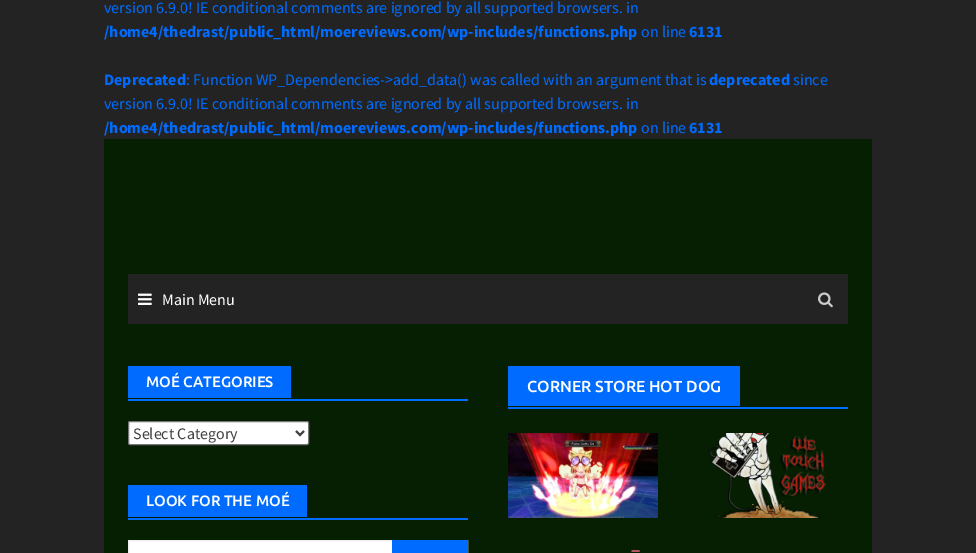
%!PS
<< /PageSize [976 553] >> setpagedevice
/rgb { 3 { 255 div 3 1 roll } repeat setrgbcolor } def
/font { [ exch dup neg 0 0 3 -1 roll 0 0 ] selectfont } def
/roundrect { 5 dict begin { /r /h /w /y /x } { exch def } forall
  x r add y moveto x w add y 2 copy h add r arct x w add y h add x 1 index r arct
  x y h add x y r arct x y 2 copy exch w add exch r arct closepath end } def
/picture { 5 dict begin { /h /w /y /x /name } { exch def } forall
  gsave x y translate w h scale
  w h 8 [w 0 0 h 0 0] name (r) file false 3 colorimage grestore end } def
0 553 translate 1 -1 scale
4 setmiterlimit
35 35 35 rgb
0 0 976 553 rectfill
6 30 1 rgb
104 139 768 414 rectfill
35 35 35 rgb
128 274 720 50 rectfill
(img/1.rgb) 138 293 14 12 picture
(img/2.rgb) 818 292 15 16 picture
0 108 255 rgb
128 399 340 2 rectfill
128 366 163 32 rectfill
255 255 255 rgb
128.5 421.5 180 23 1.5 roundrect gsave fill grestore
118 118 118 rgb
stroke
64 64 64 rgb
2 setlinewidth
296 431 moveto 300 435 lineto 304 431 lineto stroke
[
  [128 518 340 2 0 108 255]
  [128 485 179 32 0 108 255]
  [129 541 263 12 255 255 255]
] { aload pop rgb rectfill } forall
238 238 238 rgb
1 setlinewidth
128.5 540.5 339 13 rectstroke
[
  [392 540 76 13 0 108 255]
  [508 407 340 2 0 108 255]
  [508 366 232 40 0 108 255]
] { aload pop rgb rectfill } forall
(img/3.rgb) 709 433 117 85 picture
(img/4.rgb) 508 433 150 85 picture
/SourceSansPro-Regular 16 font
104 13 moveto (version 6.9.0! IE conditional comments are ignored by all supported browsers. in) show
/SourceSansPro-Bold 16 font
104 37 moveto (/home4/thedrast/public_html/moereviews.com/wp-includes/functions.php) show
/SourceSansPro-Regular 16 font
641 37 moveto (on line) show
/SourceSansPro-Bold 16 font
689 37 moveto (6131) show
104 85 moveto (Deprecated) show
/SourceSansPro-Regular 16 font
186 85 moveto (: Function WP_Dependencies->add_data\(\) was called with an argument that is) show
/SourceSansPro-Bold 16 font
709 85 moveto (deprecated) show
/SourceSansPro-Regular 16 font
793 85 moveto (since) show
104 109 moveto (version 6.9.0! IE conditional comments are ignored by all supported browsers. in) show
/SourceSansPro-Bold 16 font
104 133 moveto (/home4/thedrast/public_html/moereviews.com/wp-includes/functions.php) show
/SourceSansPro-Regular 16 font
641 133 moveto (on line) show
/SourceSansPro-Bold 16 font
689 133 moveto (6131) show
/SourceSansPro-Regular 16 font
255 255 255 rgb
162 305 moveto (Main Menu) show
/Ubuntu-Medium 15 font
146 387 moveto (MOÉ CATEGORIES) show
/SourceSansPro-Regular 16 font
64 64 64 rgb
133 439 moveto (Select Category) show
/Ubuntu-Medium 15 font
255 255 255 rgb
146 506 moveto (LOOK FOR THE MOÉ) show
/Ubuntu-Medium 16 font
527 392 moveto (CORNER STORE HOT DOG) show
/RobotoCondensed-Regular 20 font
248 102 139 rgb
630 558 moveto (–) show
showpage
